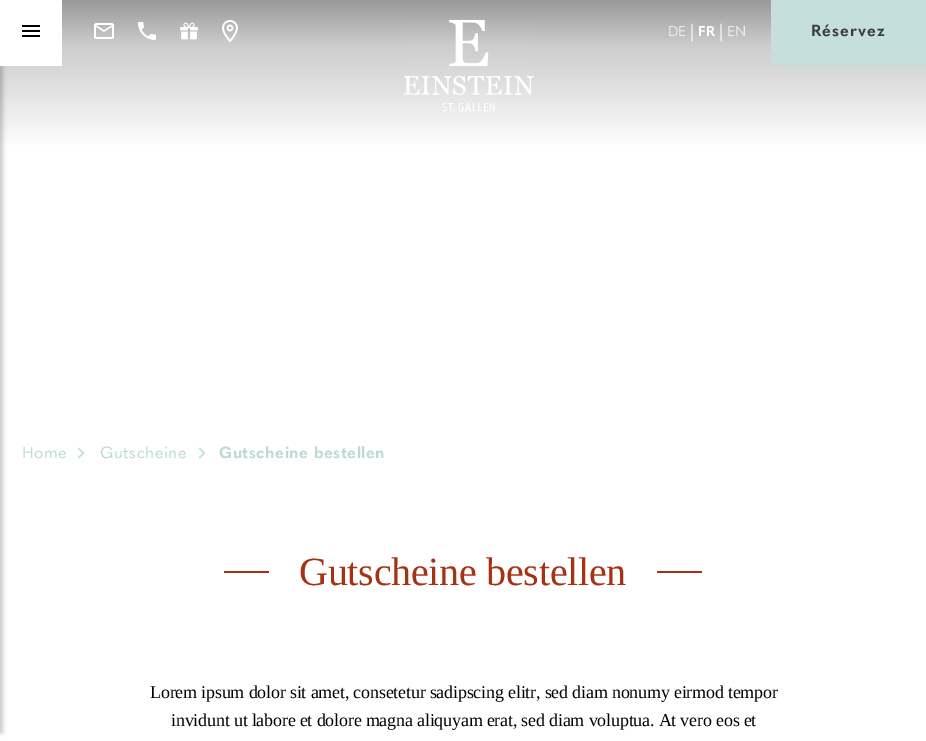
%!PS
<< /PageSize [926 741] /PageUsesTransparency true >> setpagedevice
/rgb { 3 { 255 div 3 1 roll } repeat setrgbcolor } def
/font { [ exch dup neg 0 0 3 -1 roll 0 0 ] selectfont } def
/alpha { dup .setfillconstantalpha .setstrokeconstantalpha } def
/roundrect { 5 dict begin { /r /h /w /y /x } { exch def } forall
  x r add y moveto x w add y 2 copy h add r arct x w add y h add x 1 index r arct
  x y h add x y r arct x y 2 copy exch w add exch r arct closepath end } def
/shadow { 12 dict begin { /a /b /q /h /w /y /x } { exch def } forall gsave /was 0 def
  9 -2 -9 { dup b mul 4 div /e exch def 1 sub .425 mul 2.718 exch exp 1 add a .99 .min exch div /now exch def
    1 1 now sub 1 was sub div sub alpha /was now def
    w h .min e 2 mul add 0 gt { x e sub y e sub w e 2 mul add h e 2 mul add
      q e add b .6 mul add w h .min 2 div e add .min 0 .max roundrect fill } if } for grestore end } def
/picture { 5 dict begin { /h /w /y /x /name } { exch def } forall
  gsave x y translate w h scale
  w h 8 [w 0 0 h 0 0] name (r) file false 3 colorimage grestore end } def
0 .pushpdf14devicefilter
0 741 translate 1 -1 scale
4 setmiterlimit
255 255 255 rgb
0 0 926 741 rectfill
gsave 0 0 moveto 926 0 lineto 926 145 lineto 0 145 lineto closepath clip newpath
<< /ShadingType 2 /ColorSpace /DeviceRGB /Coords [463 0 463 150] /Extend [true true] /Function << /FunctionType 3 /Domain [0 1] /Functions [<< /FunctionType 2 /Domain [0 1] /C0 [0.6 0.6 0.6] /C1 [0.8 0.8 0.8] /N 1 >> << /FunctionType 2 /Domain [0 1] /C0 [0.8 0.8 0.8] /C1 [1 1 1] /N 1 >>] /Bounds [0.3] /Encode [0 1 0 1] >> >> shfill grestore
0 0 0 rgb
-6 -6 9 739 0 2 0.2 shadow
[
  [0 0 62 66 255 255 255]
  [22 25 18 2 0 0 0]
  [22 30 18 2 0 0 0]
  [22 35 18 2 0 0 0]
] { aload pop rgb rectfill } forall
(img/1.rgb) 94 23 20 16 picture
(img/2.rgb) 138 22 18 18 picture
(img/3.rgb) 180 22 18 18 picture
(img/4.rgb) 222 20 16 23 picture
(img/5.rgb) 404 20 130 92 picture
197 223 220 rgb
771 0 155 65 rectfill
(img/6.rgb) 77 447 8 12 picture
(img/7.rgb) 198 447 7 12 picture
165 50 19 rgb
224 571 45 2 rectfill
657 571 45 2 rectfill
/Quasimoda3-Regular 14 font
255 255 255 rgb
668 36 moveto (DE) show
/Quasimoda3-Regular 17 font
690 37 moveto (|) show
/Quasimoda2-Regular 14 font
698 36 moveto (FR) show
/Quasimoda3-Regular 17 font
719 37 moveto (|) show
/Quasimoda3-Regular 14 font
727 36 moveto (EN) show
/Quasimoda2-Regular 16 font
58 60 65 rgb
811 36 moveto 1 0 (Réservez) ashow
/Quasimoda-Regular 16 font
185 218 214 rgb
22 458 moveto 0.5 0 (Home) ashow
100 458 moveto 0.5 0 (Gutscheine) ashow
/Quasimoda2-Regular 16 font
219 458 moveto 0.5 0 (Gutscheine bestellen) ashow
/LiberationSerif-Regular 40 font
165 50 19 rgb
299 585 moveto -0.25 0 (Gutscheine bestellen) ashow
/LiberationSerif-Regular 18 font
0 0 0 rgb
150 698 moveto -0.2 0 (Lorem ipsum dolor sit amet, consetetur sadipscing elitr, sed diam nonumy eirmod tempor) ashow
171 726 moveto -0.2 0 (invidunt ut labore et dolore magna aliquyam erat, sed diam voluptua. At vero eos et) ashow
.poppdf14devicefilter showpage
